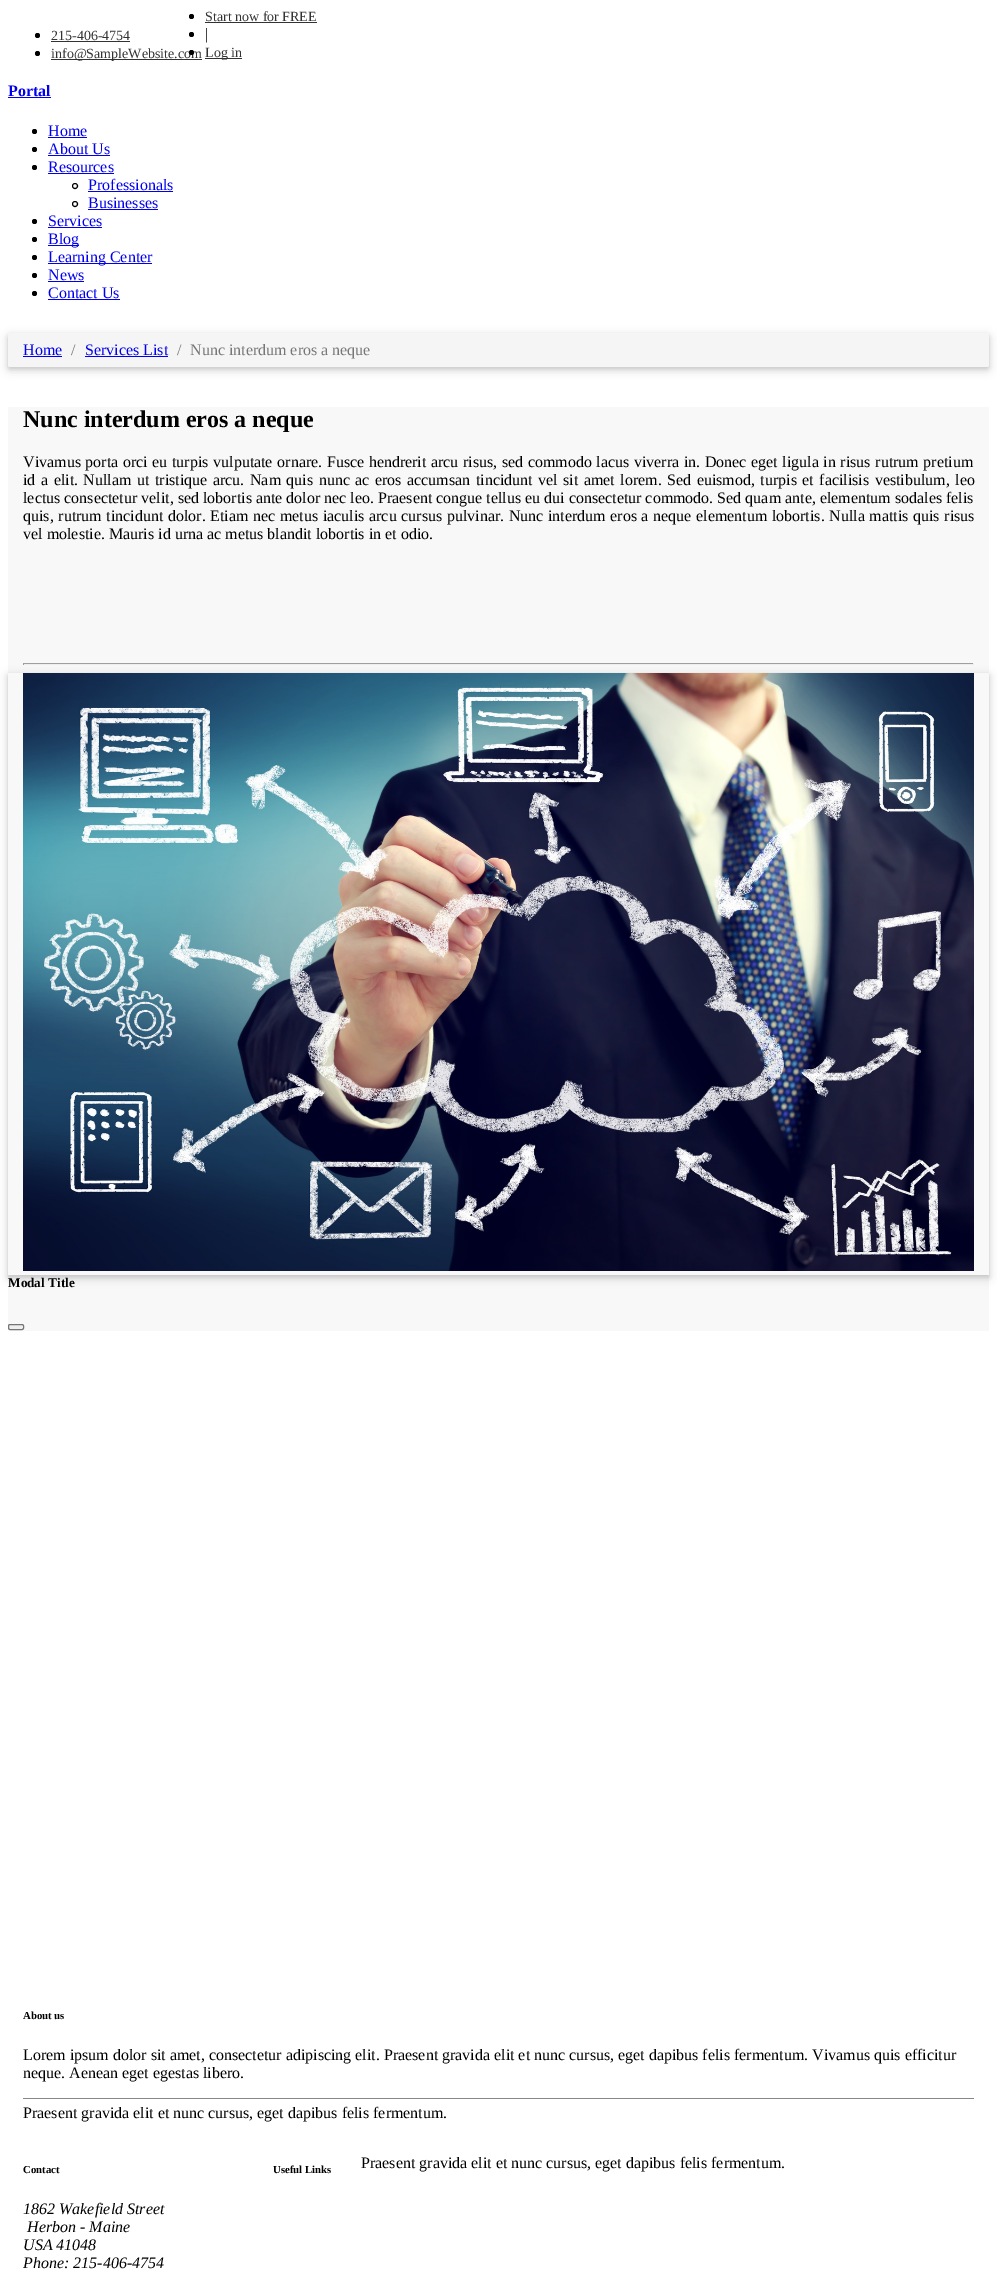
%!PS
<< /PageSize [997 2277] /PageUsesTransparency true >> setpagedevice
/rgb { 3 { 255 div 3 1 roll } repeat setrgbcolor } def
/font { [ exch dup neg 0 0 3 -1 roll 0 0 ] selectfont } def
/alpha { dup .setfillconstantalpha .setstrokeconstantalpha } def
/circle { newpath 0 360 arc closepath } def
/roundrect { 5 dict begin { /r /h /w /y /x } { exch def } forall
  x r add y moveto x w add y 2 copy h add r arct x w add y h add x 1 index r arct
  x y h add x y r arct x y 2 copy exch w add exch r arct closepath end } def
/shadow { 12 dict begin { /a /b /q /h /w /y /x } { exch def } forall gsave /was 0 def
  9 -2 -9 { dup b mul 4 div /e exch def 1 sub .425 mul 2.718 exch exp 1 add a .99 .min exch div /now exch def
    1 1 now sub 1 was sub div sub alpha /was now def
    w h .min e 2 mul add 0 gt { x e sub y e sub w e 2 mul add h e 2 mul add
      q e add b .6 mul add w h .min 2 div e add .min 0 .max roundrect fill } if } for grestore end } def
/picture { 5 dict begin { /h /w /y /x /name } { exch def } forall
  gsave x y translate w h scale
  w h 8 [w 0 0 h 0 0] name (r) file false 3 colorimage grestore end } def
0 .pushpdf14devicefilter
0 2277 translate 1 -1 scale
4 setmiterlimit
255 255 255 rgb
0 0 997 2277 rectfill
0 0 0 rgb
37.5 35.5 2.5 circle fill
51 51 51 rgb
51 41 79 1 rectfill
0 0 0 rgb
37.5 53.5 2.5 circle fill
51 51 51 rgb
51 59 151 1 rectfill
0 0 0 rgb
191.5 16.5 2.5 circle fill
51 51 51 rgb
205 22 112 1 rectfill
0 0 0 rgb
191.5 34.5 2.5 circle fill
51 51 51 rgb
205 58 37 1 rectfill
0 0 238 rgb
8 97 43 1 rectfill
0 0 0 rgb
34.5 131.5 2.5 circle fill
0 0 238 rgb
48 137 39 1 rectfill
0 0 0 rgb
34.5 149.5 2.5 circle fill
0 0 238 rgb
48 155 62 1 rectfill
0 0 0 rgb
34.5 167.5 2.5 circle fill
0 0 238 rgb
48 173 66 1 rectfill
0 0 0 rgb
75 186 2.5 circle stroke
0 0 238 rgb
88 191 85 1 rectfill
0 0 0 rgb
75 204 2.5 circle stroke
0 0 238 rgb
88 209 70 1 rectfill
0 0 0 rgb
34.5 221.5 2.5 circle fill
0 0 238 rgb
48 227 54 1 rectfill
0 0 0 rgb
34.5 239.5 2.5 circle fill
0 0 238 rgb
48 245 31 1 rectfill
0 0 0 rgb
34.5 257.5 2.5 circle fill
0 0 238 rgb
48 263 104 1 rectfill
0 0 0 rgb
34.5 275.5 2.5 circle fill
0 0 238 rgb
48 281 36 1 rectfill
0 0 0 rgb
34.5 293.5 2.5 circle fill
0 0 238 rgb
48 299 72 1 rectfill
0 0 0 rgb
8 336 981 34 2 5 0.15 shadow
8 335 981 34 2 2 0.1 shadow
245 245 245 rgb
8 333 981 34 2 roundrect fill
[
  [23 356 39 1 0 0 238]
  [85 356 83 1 0 0 238]
  [8 407 981 924 248 248 248]
  [23 663 951 1 159 159 159]
  [973 663 1 2 238 238 238]
  [23 664 951 1 238 238 238]
  [23 663 1 2 159 159 159]
] { aload pop rgb rectfill } forall
gsave
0 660 moveto 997 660 lineto 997 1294 lineto 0 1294 lineto closepath 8 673 moveto 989 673 lineto 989 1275 lineto 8 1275 lineto closepath eoclip newpath
0 0 0 rgb
8 676 981 602 0 5 0.15 shadow
grestore
gsave
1 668 moveto 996 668 lineto 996 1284 lineto 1 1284 lineto closepath 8 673 moveto 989 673 lineto 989 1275 lineto 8 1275 lineto closepath eoclip newpath
0 0 0 rgb
8 675 981 602 0 2 0.1 shadow
grestore
(img/1.rgb) 23 673 951 598 picture
239 239 239 rgb
8.5 1324.5 15 5 1.5 roundrect gsave fill grestore
118 118 118 rgb
stroke
135 135 135 rgb
23 2098 951 1 rectfill
/LiberationSerif-Regular 14 font
51 51 51 rgb
[
  [(215-406-4754) 51 40]
  [(info@SampleWebsite.com) 51 58]
  [(Start now for FREE) 205 21]
] { aload pop moveto show } forall
/LiberationSerif-Regular 16 font
0 0 0 rgb
205 39 moveto (|) show
191.5 52.5 2.5 circle fill
/LiberationSerif-Regular 14 font
51 51 51 rgb
205 57 moveto (Log in) show
/LiberationSerif-Bold 16 font
0 0 238 rgb
8 96 moveto (Portal) show
/LiberationSerif-Regular 16 font
[
  [(Home) 48 136]
  [(About Us) 48 154]
  [(Resources) 48 172]
  [(Professionals) 88 190]
  [(Businesses) 88 208]
  [(Services) 48 226]
  [(Blog) 48 244]
  [(Learning Center) 48 262]
  [(News) 48 280]
  [(Contact Us) 48 298]
  [(Home) 23 355]
] { aload pop moveto show } forall
119 119 119 rgb
71 355 moveto (/) show
0 0 238 rgb
85 355 moveto (Services List) show
119 119 119 rgb
177 355 moveto (/) show
190 355 moveto (Nunc interdum eros a neque) show
/LiberationSerif-Bold 24 font
0 0 0 rgb
23 427 moveto (Nunc interdum eros a neque) show
/LiberationSerif-Regular 16 font
23 467 moveto 0.6 0 32 (Vivamus porta orci eu turpis vulputate ornare. Fusce hendrerit arcu risus, sed commodo lacus viverra in. Donec eget ligula in risus rutrum pretium) widthshow
23 485 moveto 1.5 0 32 (id a elit. Nullam ut tristique arcu. Nam quis nunc ac eros accumsan tincidunt vel sit amet lorem. Sed euismod, turpis et facilisis vestibulum, leo) widthshow
23 503 moveto (lectus consectetur velit, sed lobortis ante dolor nec leo. Praesent congue tellus eu dui consectetur commodo. Sed quam ante, elementum sodales felis) show
23 521 moveto 0.6 0 32 (quis, rutrum tincidunt dolor. Etiam nec metus iaculis arcu cursus pulvinar. Nunc interdum eros a neque elementum lobortis. Nulla mattis quis risus) widthshow
23 539 moveto (vel molestie. Mauris id urna ac metus blandit lobortis in et odio.) show
/LiberationSerif-Bold 13.25 font
8 1287 moveto (Modal Title) show
/LiberationSerif-Bold 10.75 font
23 2019 moveto (About us) show
/LiberationSerif-Regular 16 font
[
  [(Lorem ipsum dolor sit amet, consectetur adipiscing elit. Praesent gravida elit et nunc cursus, eget dapibus felis fermentum. Vivamus quis efficitur) 23 2060]
  [(neque. Aenean eget egestas libero.) 23 2078]
  [(Praesent gravida elit et nunc cursus, eget dapibus felis fermentum.) 23 2118]
] { aload pop moveto show } forall
/LiberationSerif-Bold 10.75 font
23 2173 moveto (Contact) show
/LiberationSerif-Italic 16 font
[
  [(1862 Wakefield Street) 23 2214]
  [(Herbon - Maine) 27 2232]
  [(USA 41048) 23 2250]
  [(Phone: 215-406-4754) 23 2268]
] { aload pop moveto show } forall
/LiberationSerif-Bold 10.75 font
273 2173 moveto (Useful Links) show
/LiberationSerif-Regular 16 font
361 2168 moveto (Praesent gravida elit et nunc cursus, eget dapibus felis fermentum.) show
.poppdf14devicefilter showpage
